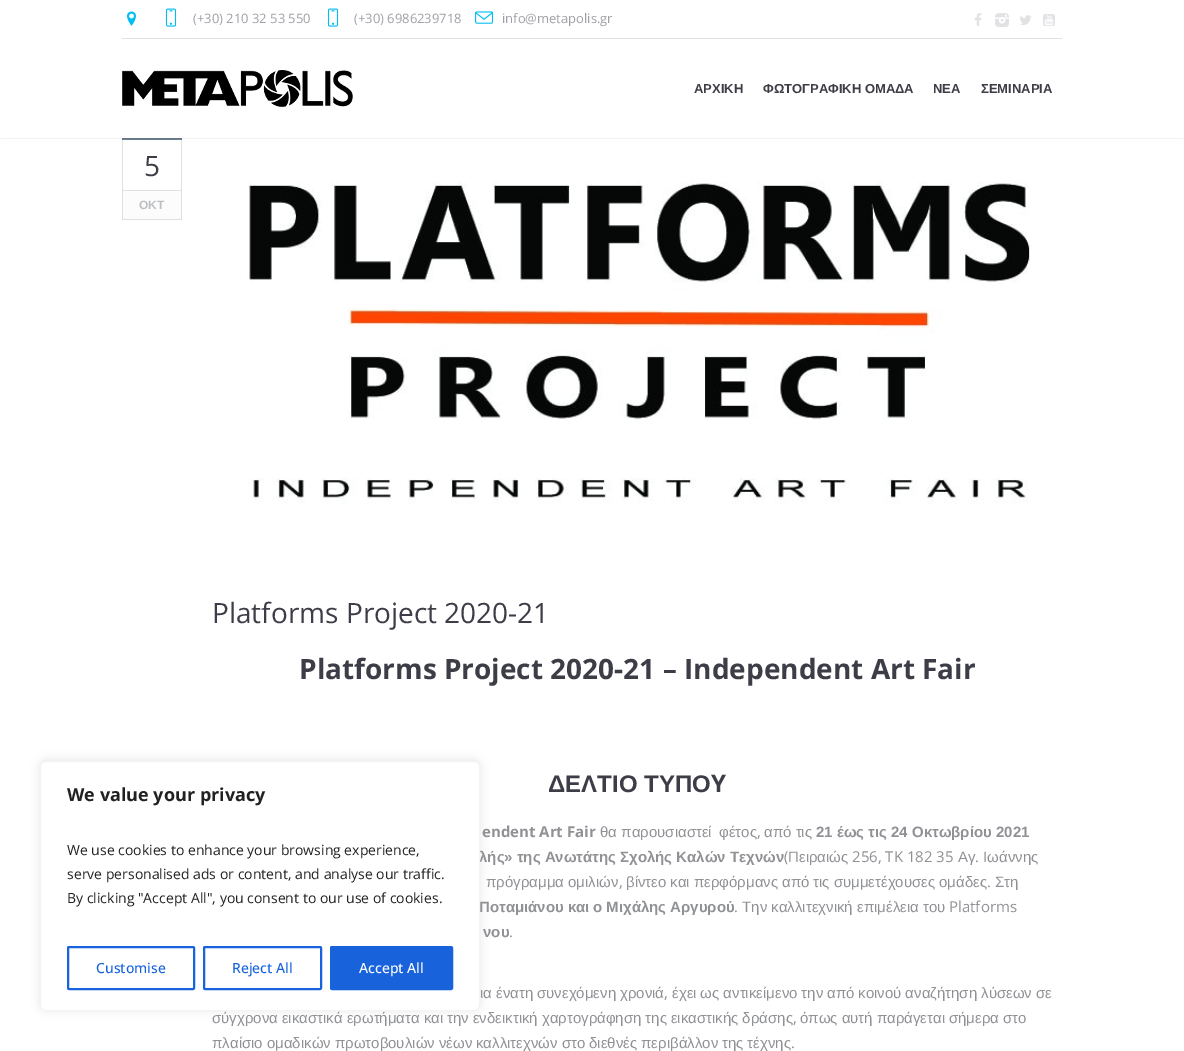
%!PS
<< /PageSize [1184 1051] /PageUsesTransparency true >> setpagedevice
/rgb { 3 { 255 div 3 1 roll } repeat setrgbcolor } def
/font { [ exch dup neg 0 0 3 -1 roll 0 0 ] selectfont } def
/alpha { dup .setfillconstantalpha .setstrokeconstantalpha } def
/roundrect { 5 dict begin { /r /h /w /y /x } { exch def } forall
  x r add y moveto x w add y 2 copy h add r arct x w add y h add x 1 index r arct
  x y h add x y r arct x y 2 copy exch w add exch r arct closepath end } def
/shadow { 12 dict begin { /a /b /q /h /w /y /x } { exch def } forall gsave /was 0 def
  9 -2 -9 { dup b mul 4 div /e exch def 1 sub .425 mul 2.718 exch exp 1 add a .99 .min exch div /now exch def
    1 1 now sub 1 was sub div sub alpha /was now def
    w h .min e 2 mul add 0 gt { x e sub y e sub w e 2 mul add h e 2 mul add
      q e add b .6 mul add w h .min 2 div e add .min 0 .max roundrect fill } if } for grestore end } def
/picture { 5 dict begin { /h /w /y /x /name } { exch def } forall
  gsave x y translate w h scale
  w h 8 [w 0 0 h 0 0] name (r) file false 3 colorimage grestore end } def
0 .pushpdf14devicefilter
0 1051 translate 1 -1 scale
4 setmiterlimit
255 255 255 rgb
0 0 1184 1051 rectfill
[
  [122 138 60 2 107 122 143]
  [181 140 1 80 224 224 224]
  [122 219 60 1 224 224 224]
  [122 140 1 80 224 224 224]
] { aload pop rgb rectfill } forall
gsave
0 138 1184 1 rectclip
0 0 0 rgb
0 1 1184 138 0 0.5 0.05 shadow
grestore
(img/1.rgb) 127 11 9 15 picture
(img/2.rgb) 165 8 12 19 picture
(img/2.rgb) 327 8 12 19 picture
(img/3.rgb) 475 11 18 13 picture
(img/4.rgb) 974 13 8 13 picture
(img/5.rgb) 995 13 14 14 picture
(img/6.rgb) 1020 15 12 10 picture
(img/7.rgb) 1043 14 12 12 picture
122 38 940 1 rectfill
(img/8.rgb) 122 70 231 37 picture
252 252 252 rgb
123 191 58 28 rectfill
224 224 224 rgb
123 190 58 1 rectfill
(img/9.rgb) 247 181 785 323 picture
172 171 171 rgb
40 760 440 250 6 5 0.3 shadow
/OpenSans-Regular 13 font
159 159 167 rgb
[
  [(\(+30\) 210 32 53 550) 193 23]
  [(\(+30\) 6986239718) 354 23]
  [(info@metapolis.gr) 502 23]
] { aload pop moveto show } forall
/LiberationSans-Bold 13 font
61 61 71 rgb
[
  [(ΑΡΧΙΚΗ) 694 93]
  [(ΦΩΤΟΓΡΑΦΙΚΗ ΟΜΑΔΑ) 763 93]
  [(ΝΕΑ) 933 93]
  [(ΣΕΜΙΝΑΡΙΑ) 981 93]
] { aload pop moveto show } forall
/OpenSans-Regular 28 font
144 176 moveto (5) show
/LiberationSans-Bold 12 font
188 190 193 rgb
139 209 moveto (ΟΚΤ) show
/OpenSans-Regular 28 font
61 61 71 rgb
212 623 moveto (Platforms Project 2020-21) show
/OpenSans-Bold 28 font
299 679 moveto (Platforms Project 2020-21 – Independent Art Fair) show
/LiberationSans-Bold 24 font
548 792 moveto (ΔΕΛΤΙΟ ΤΥΠΟ) show
/OpenSans-Bold 24 font
711 792 moveto (Y) show
/OpenSans-Bold 15 font
144 145 149 rgb
482 837 moveto (endent Art Fair) show
/LiberationSans-Regular 15 font
600 837 moveto (θα παρουσιαστεί) show
719 837 moveto (φέτος) show
/OpenSans-Regular 15 font
757 837 moveto (,) show
/LiberationSans-Regular 15 font
764 837 moveto (από τις) show
/LiberationSans-Bold 15 font
816 837 moveto (21 έως τις 24 Οκτωβρίου 2021) show
479 862 moveto (λής» της Ανωτάτης Σχολής Καλών Τεχνών) show
/OpenSans-Regular 15 font
784 862 moveto (\() show
/LiberationSans-Regular 15 font
788 862 moveto (Πειραιώς) show
/OpenSans-Regular 15 font
852 862 moveto (256, TK 182 35) show
/LiberationSans-Regular 15 font
958 862 moveto (Αγ) show
/OpenSans-Regular 15 font
975 862 moveto (.) show
/LiberationSans-Regular 15 font
983 862 moveto (Ιωάννης) show
486 887 moveto -0.25 0 32 (πρόγραμμα ομιλιών) widthshow
/OpenSans-Regular 15 font
619 887 moveto (,) show
/LiberationSans-Regular 15 font
626 887 moveto -0.25 0 32 (βίντεο και περφόρμανς από τις συμμετέχουσες ομάδες) widthshow
/OpenSans-Regular 15 font
987 887 moveto (.) show
/LiberationSans-Regular 15 font
995 887 moveto (Στη) show
/LiberationSans-Bold 15 font
479 912 moveto -0.25 0 32 (Ποταμιάνου και ο Μιχάλης Αργυρού) widthshow
/OpenSans-Regular 15 font
734 912 moveto (.) show
/LiberationSans-Regular 15 font
742 912 moveto (Την καλλιτεχνική επιμέλεια του) show
/OpenSans-Regular 15 font
949 912 moveto (Platforms) show
/LiberationSans-Bold 15 font
483 937 moveto -0.25 0 32 (νου) widthshow
/OpenSans-Regular 15 font
509 937 moveto (.) show
/LiberationSans-Regular 15 font
480 998 moveto -0.25 0 32 (ια ένατη συνεχόμενη χρονιά) widthshow
/OpenSans-Regular 15 font
664 998 moveto (,) show
/LiberationSans-Regular 15 font
672 998 moveto -0.25 0 32 (έχει ως αντικείμενο την από κοινού αναζήτηση λύσεων σε) widthshow
212 1023 moveto -0.25 0 32 (σύγχρονα εικαστικά ερωτήματα και την ενδεικτική χαρτογράφηση της εικαστικής δράσης) widthshow
/OpenSans-Regular 15 font
793 1023 moveto (,) show
/LiberationSans-Regular 15 font
800 1023 moveto -0.25 0 32 (όπως αυτή παράγεται σήμερα στο) widthshow
212 1048 moveto -0.25 0 32 (πλαίσιο ομαδικών πρωτοβουλιών νέων καλλιτεχνών στο διεθνές περιβάλλον της τέχνης) widthshow
/OpenSans-Regular 15 font
791 1048 moveto (.) show
255 255 255 rgb
40.5 761.5 439 249 5.5 roundrect gsave fill grestore
244 244 244 rgb
stroke
/OpenSans-Bold 18 font
33 33 33 rgb
67 801 moveto (We value your privacy) show
/OpenSans-Regular 14 font
[
  [(We use cookies to enhance your browsing experience,) 67 855]
  [(serve personalised ads or content, and analyse our traffic.) 67 879]
  [(By clicking "Accept All", you consent to our use of cookies.) 67 903]
] { aload pop moveto show } forall
24 99 220 rgb
2 setlinewidth
68 947 126 42 1 roundrect stroke
/OpenSans-Medium 14 font
96 973 moveto (Customise) show
204 947 117 42 1 roundrect stroke
232 973 moveto (Reject All) show
331 947 121 42 1 roundrect gsave fill grestore
stroke
255 255 255 rgb
359 973 moveto (Accept All) show
.poppdf14devicefilter showpage
